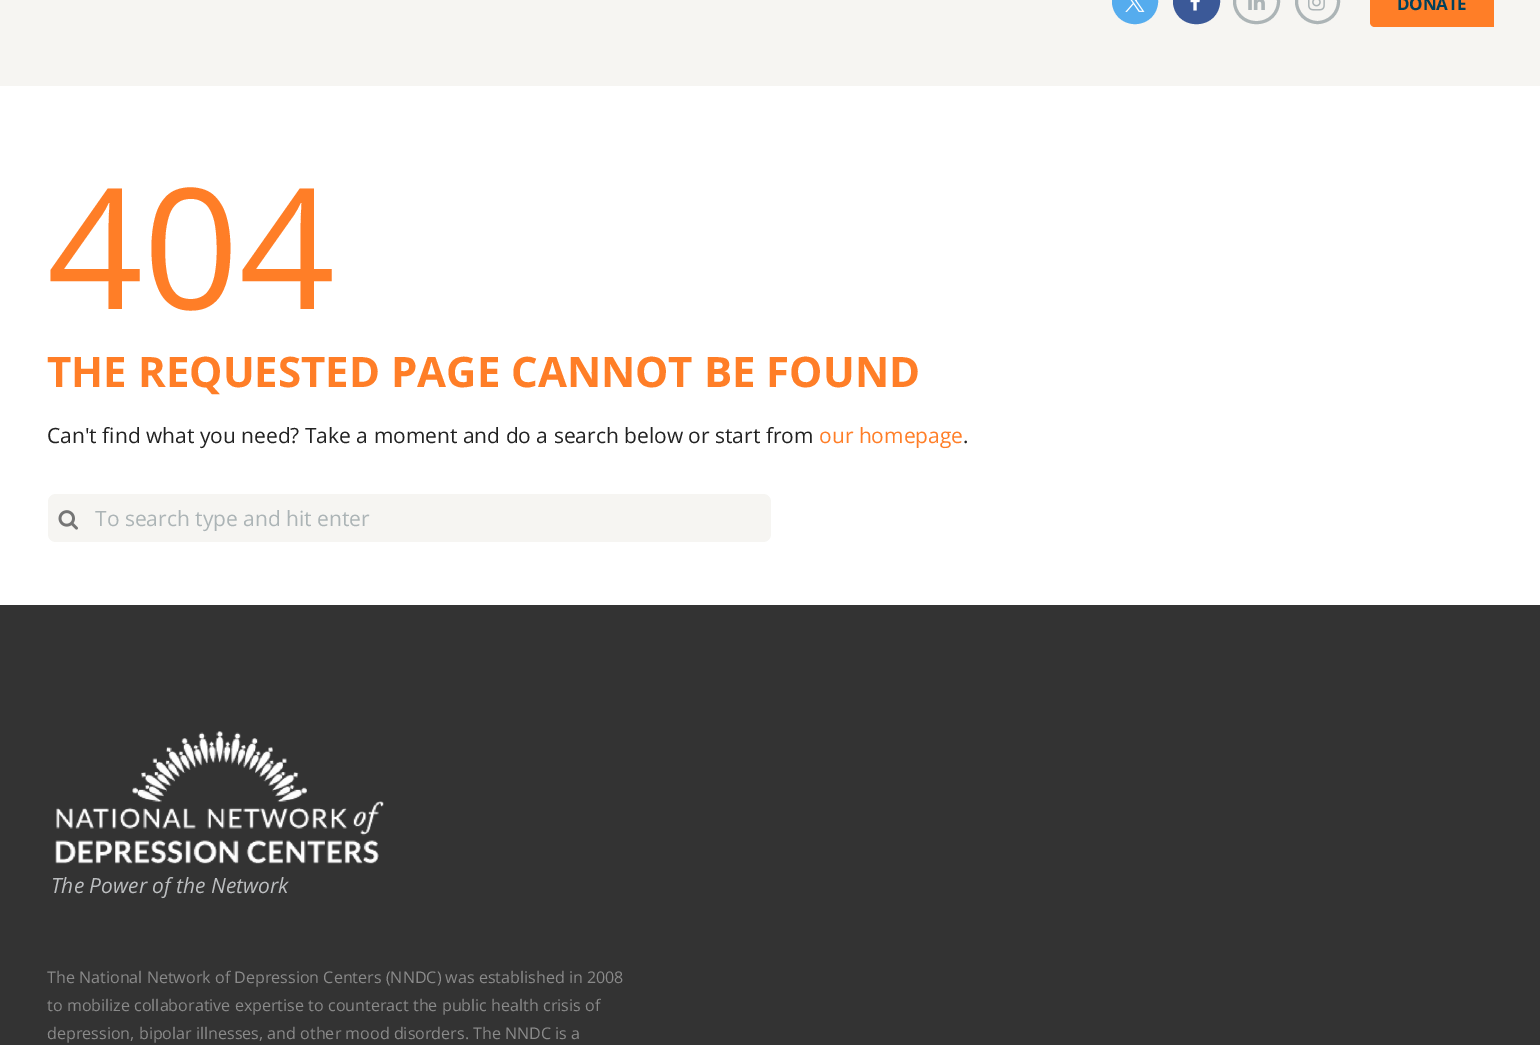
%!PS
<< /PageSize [1540 1045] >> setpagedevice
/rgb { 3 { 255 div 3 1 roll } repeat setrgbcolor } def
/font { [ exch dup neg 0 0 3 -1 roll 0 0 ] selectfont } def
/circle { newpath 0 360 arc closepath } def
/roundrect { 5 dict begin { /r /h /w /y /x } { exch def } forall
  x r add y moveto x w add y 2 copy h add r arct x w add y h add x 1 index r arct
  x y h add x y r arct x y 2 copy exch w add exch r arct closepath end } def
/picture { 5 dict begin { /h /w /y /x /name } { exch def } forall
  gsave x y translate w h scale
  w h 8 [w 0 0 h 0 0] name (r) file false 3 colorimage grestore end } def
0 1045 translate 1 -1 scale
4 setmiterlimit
255 255 255 rgb
0 0 1540 1045 rectfill
246 245 242 rgb
0 0 1540 86 rectfill
85 172 238 rgb
1113.5 -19.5 43 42 21 roundrect gsave fill grestore
3 setlinewidth
stroke
(img/1.rgb) 1125 0 20 12 picture
59 89 152 rgb
1174.5 -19.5 44 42 21 roundrect gsave fill grestore
stroke
(img/2.rgb) 1190 0 10 11 picture
172 180 182 rgb
1234.5 -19.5 44 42 21 roundrect stroke
(img/3.rgb) 1248 0 17 10 picture
1317.5 1.5 21 circle stroke
(img/4.rgb) 1308 0 17 11 picture
255 126 39 rgb
1375 -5 moveto 1494 -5 lineto 1494 27 lineto 1375 27 lineto 1372 27 1370 25 1370 22 curveto 1370 0 lineto 1370 -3 1372 -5 1375 -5 curveto closepath fill
246 245 242 rgb
48 494 723 48 8 roundrect fill
(img/5.rgb) 58 510 20 20 picture
51 51 51 rgb
0 605 1540 440 rectfill
(img/6.rgb) 55 731 329 133 picture
/OpenSans-Bold 17 font
1 65 92 rgb
1397 10 moveto -0.25 0 (DONATE) ashow
/OpenSans-Regular 168 font
255 126 39 rgb
47 309 moveto (404) show
/OpenSans-Bold 42 font
47 387 moveto (THE REQUESTED PAGE CANNOT BE FOUND) show
/OpenSans-Regular 21 font
34 34 34 rgb
47 443 moveto (Can't find what you need? Take a moment and do a search below or start from) show
255 126 39 rgb
819 443 moveto (our homepage) show
34 34 34 rgb
963 443 moveto (.) show
172 180 182 rgb
95 526 moveto (To search type and hit enter) show
/OpenSans-Italic 21 font
188 190 192 rgb
51 893 moveto (The Power of the Network) show
/OpenSans-Regular 16.1 font
138 138 138 rgb
[
  [(The National Network of Depression Centers \(NNDC\) was established in 2008) 47 983]
  [(to mobilize collaborative expertise to counteract the public health crisis of) 47 1011]
  [(depression, bipolar illnesses, and other mood disorders. The NNDC is a) 47 1039]
] { aload pop moveto show } forall
showpage
